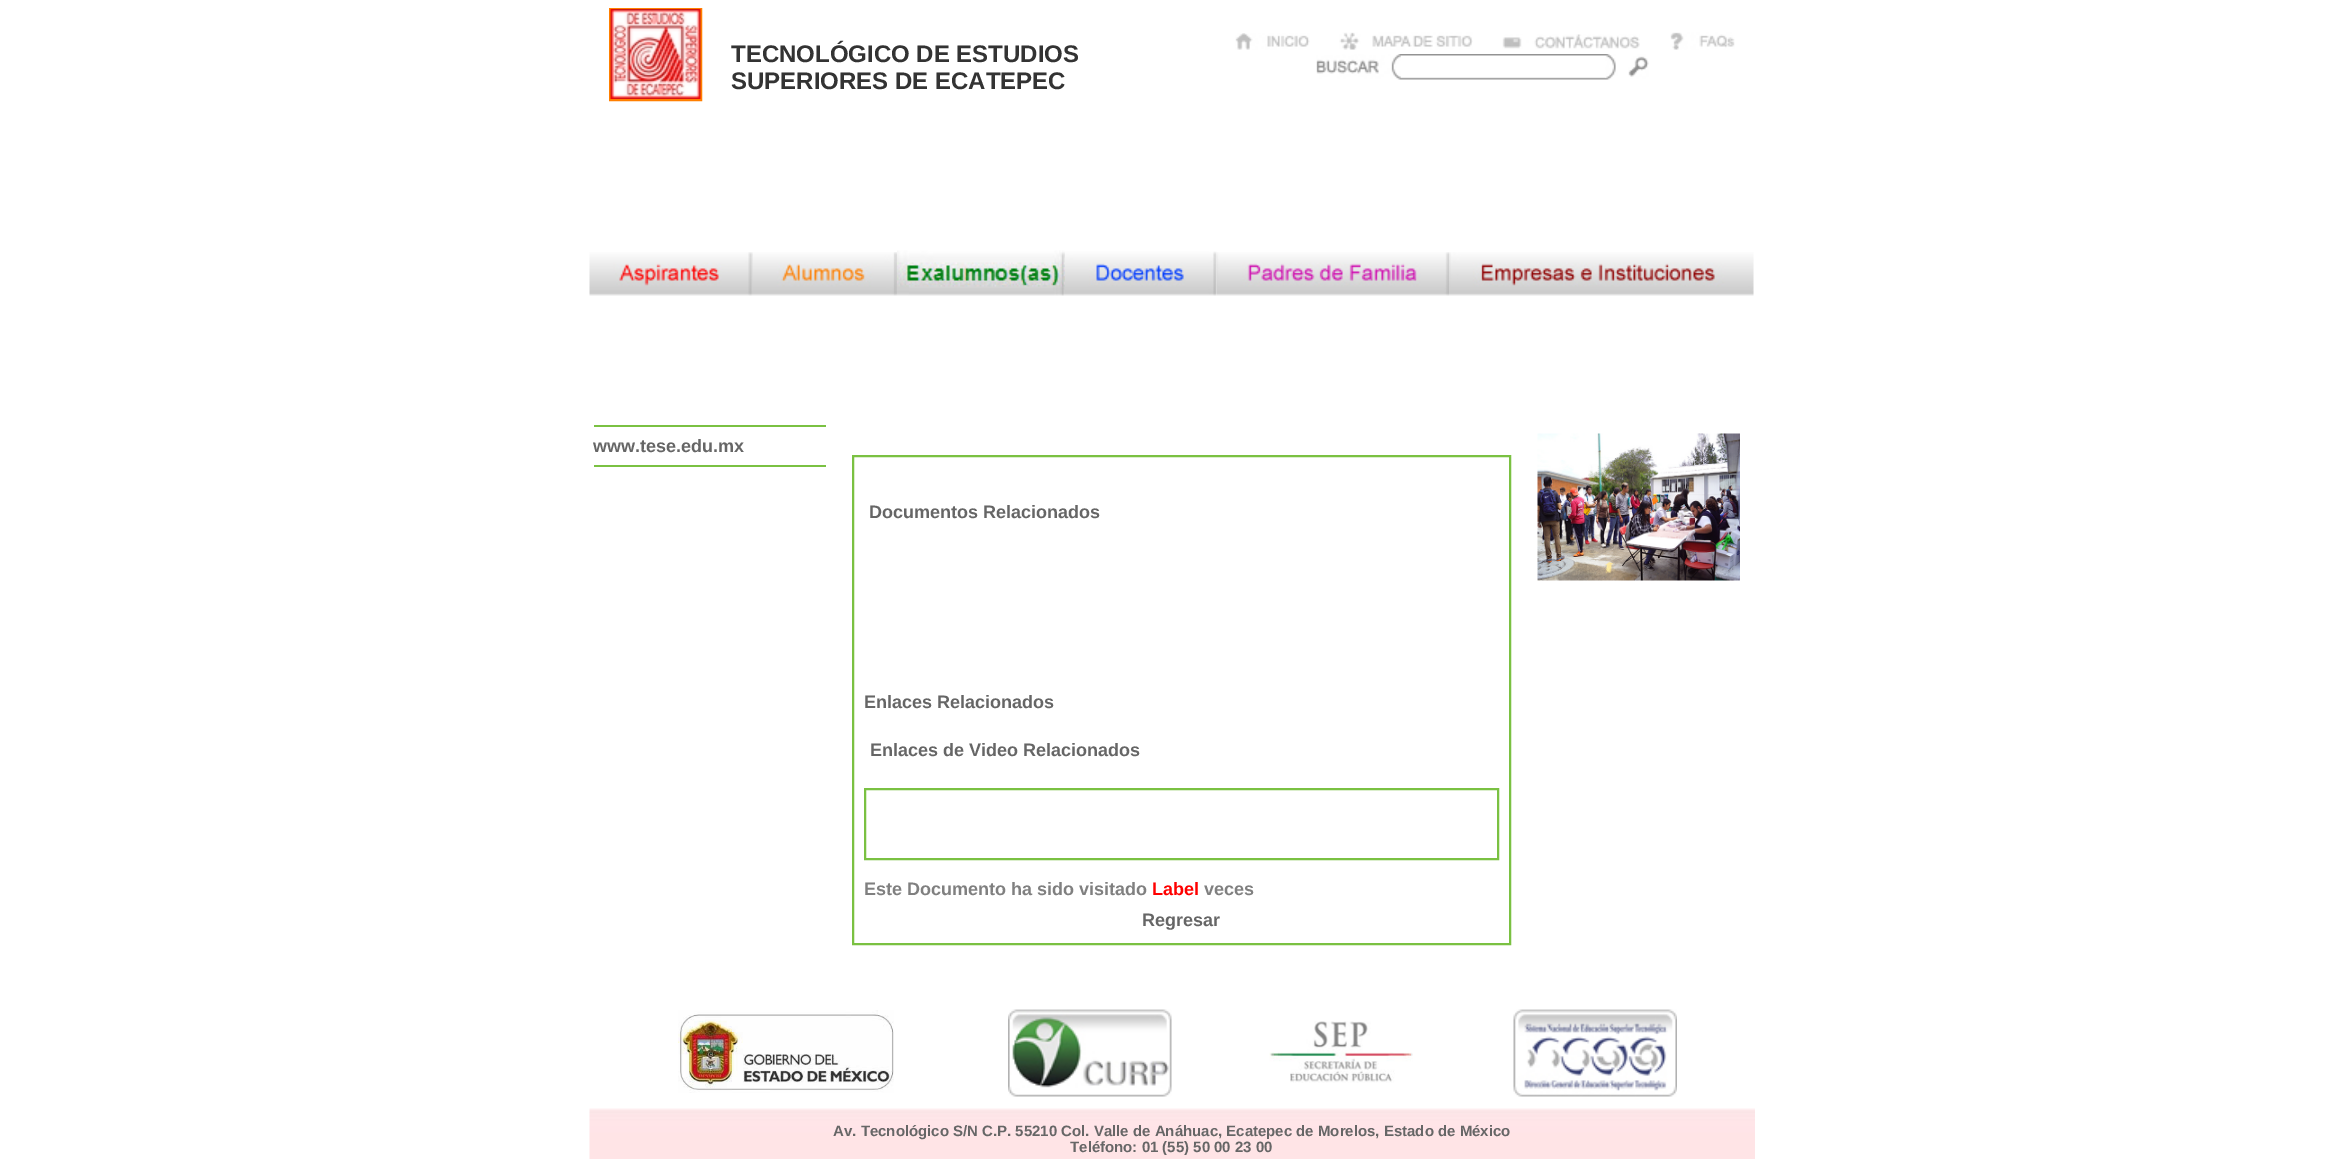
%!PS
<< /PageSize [2342 1159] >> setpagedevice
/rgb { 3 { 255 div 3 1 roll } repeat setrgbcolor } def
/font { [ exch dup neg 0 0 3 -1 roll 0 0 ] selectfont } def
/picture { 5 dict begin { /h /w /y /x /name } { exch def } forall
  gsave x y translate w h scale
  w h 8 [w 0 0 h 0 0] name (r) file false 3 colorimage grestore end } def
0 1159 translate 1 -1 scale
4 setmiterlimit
255 255 255 rgb
0 0 2342 1159 rectfill
255 127 0 rgb
2 setlinewidth
610 9 91 91 rectstroke
(img/1.rgb) 610 9 91 90 picture
(img/2.rgb) 1235 33 75 17 picture
(img/3.rgb) 1339 32 134 18 picture
(img/4.rgb) 1502 34 138 15 picture
(img/5.rgb) 1670 32 65 18 picture
(img/6.rgb) 1316 54 85 26 picture
(img/7.rgb) 1401 54 204 26 picture
(img/8.rgb) 1605 54 44 26 picture
(img/9.rgb) 589 252 164 44 picture
(img/10.rgb) 753 252 144 44 picture
(img/11.rgb) 897 250 168 46 picture
(img/12.rgb) 1065 251 152 45 picture
(img/13.rgb) 1216 252 233 44 picture
(img/14.rgb) 1449 252 305 44 picture
122 193 66 rgb
594 425 232 2 rectfill
594 465 232 2 rectfill
853 456 657 488 rectstroke
865 789 633 70 rectstroke
(img/15.rgb) 1537 433 203 148 picture
(img/16.rgb) 678 1010 216 83 picture
(img/17.rgb) 1008 1009 164 88 picture
(img/18.rgb) 1269 1021 144 62 picture
(img/19.rgb) 1513 1009 164 88 picture
(img/20.rgb) 589 1108 1166 51 picture
/LiberationSans-Bold 24 font
51 51 51 rgb
731 62 moveto (TECNOLÓGICO DE ESTUDIOS) show
731 89 moveto (SUPERIORES DE ECATEPEC) show
/LiberationSans-Bold 18 font
102 102 102 rgb
[
  [(www.tese.edu.mx) 593 452]
  [(Documentos Relacionados) 869 518]
  [(Enlaces Relacionados) 864 708]
  [(Enlaces de Video Relacionados) 870 756]
] { aload pop moveto show } forall
128 128 128 rgb
864 895 moveto (Este Documento ha sido visitado) show
255 0 0 rgb
1152 895 moveto (Label) show
128 128 128 rgb
1204 895 moveto (veces) show
102 102 102 rgb
1142 926 moveto (Regresar) show
/LiberationSans-Bold 15 font
833 1136 moveto (Av. Tecnológico S/N C.P. 55210 Col. Valle de Anáhuac, Ecatepec de Morelos, Estado de México) show
1070 1152 moveto (Teléfono: 01 \(55\) 50 00 23 00) show
showpage
